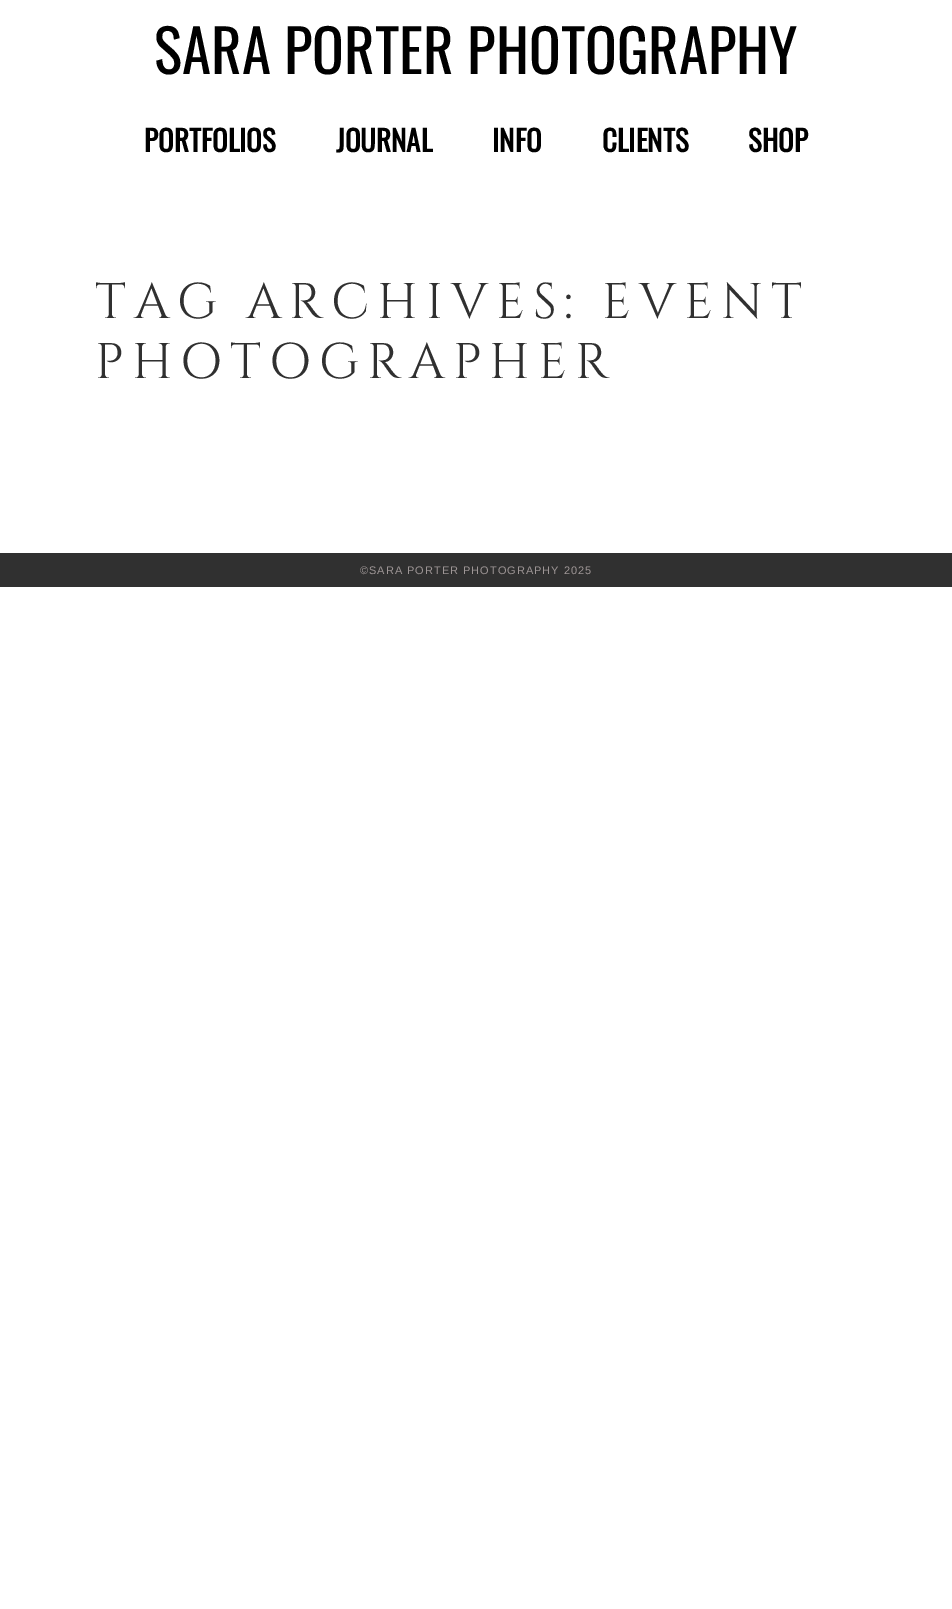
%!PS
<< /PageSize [952 1609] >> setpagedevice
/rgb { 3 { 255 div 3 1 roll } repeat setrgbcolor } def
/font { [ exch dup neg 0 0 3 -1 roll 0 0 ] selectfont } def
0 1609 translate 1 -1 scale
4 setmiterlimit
255 255 255 rgb
0 0 952 1609 rectfill
48 48 48 rgb
0 553 952 34 rectfill
/Oswald-Regular 59 font
0 0 0 rgb
154 74 moveto (SARA PORTER PHOTOGRAPHY) show
/Oswald-Bold 29 font
[
  [(PORTFOLIOS) 144 152]
  [(JOURNAL) 336 152]
  [(INFO) 492 152]
  [(CLIENTS) 602 152]
  [(SHOP) 748 152]
] { aload pop moveto show } forall
/Cinzel-Regular 50 font
48 48 48 rgb
95 318 moveto 8 0 (TAG ARCHIVES: EVENT) ashow
95 378 moveto 8 0 (PHOTOGRAPHER) ashow
/LiberationSans-Regular 11 font
158 150 150 rgb
360 574 moveto 1 0 (©SARA PORTER PHOTOGRAPHY 2025) ashow
showpage
